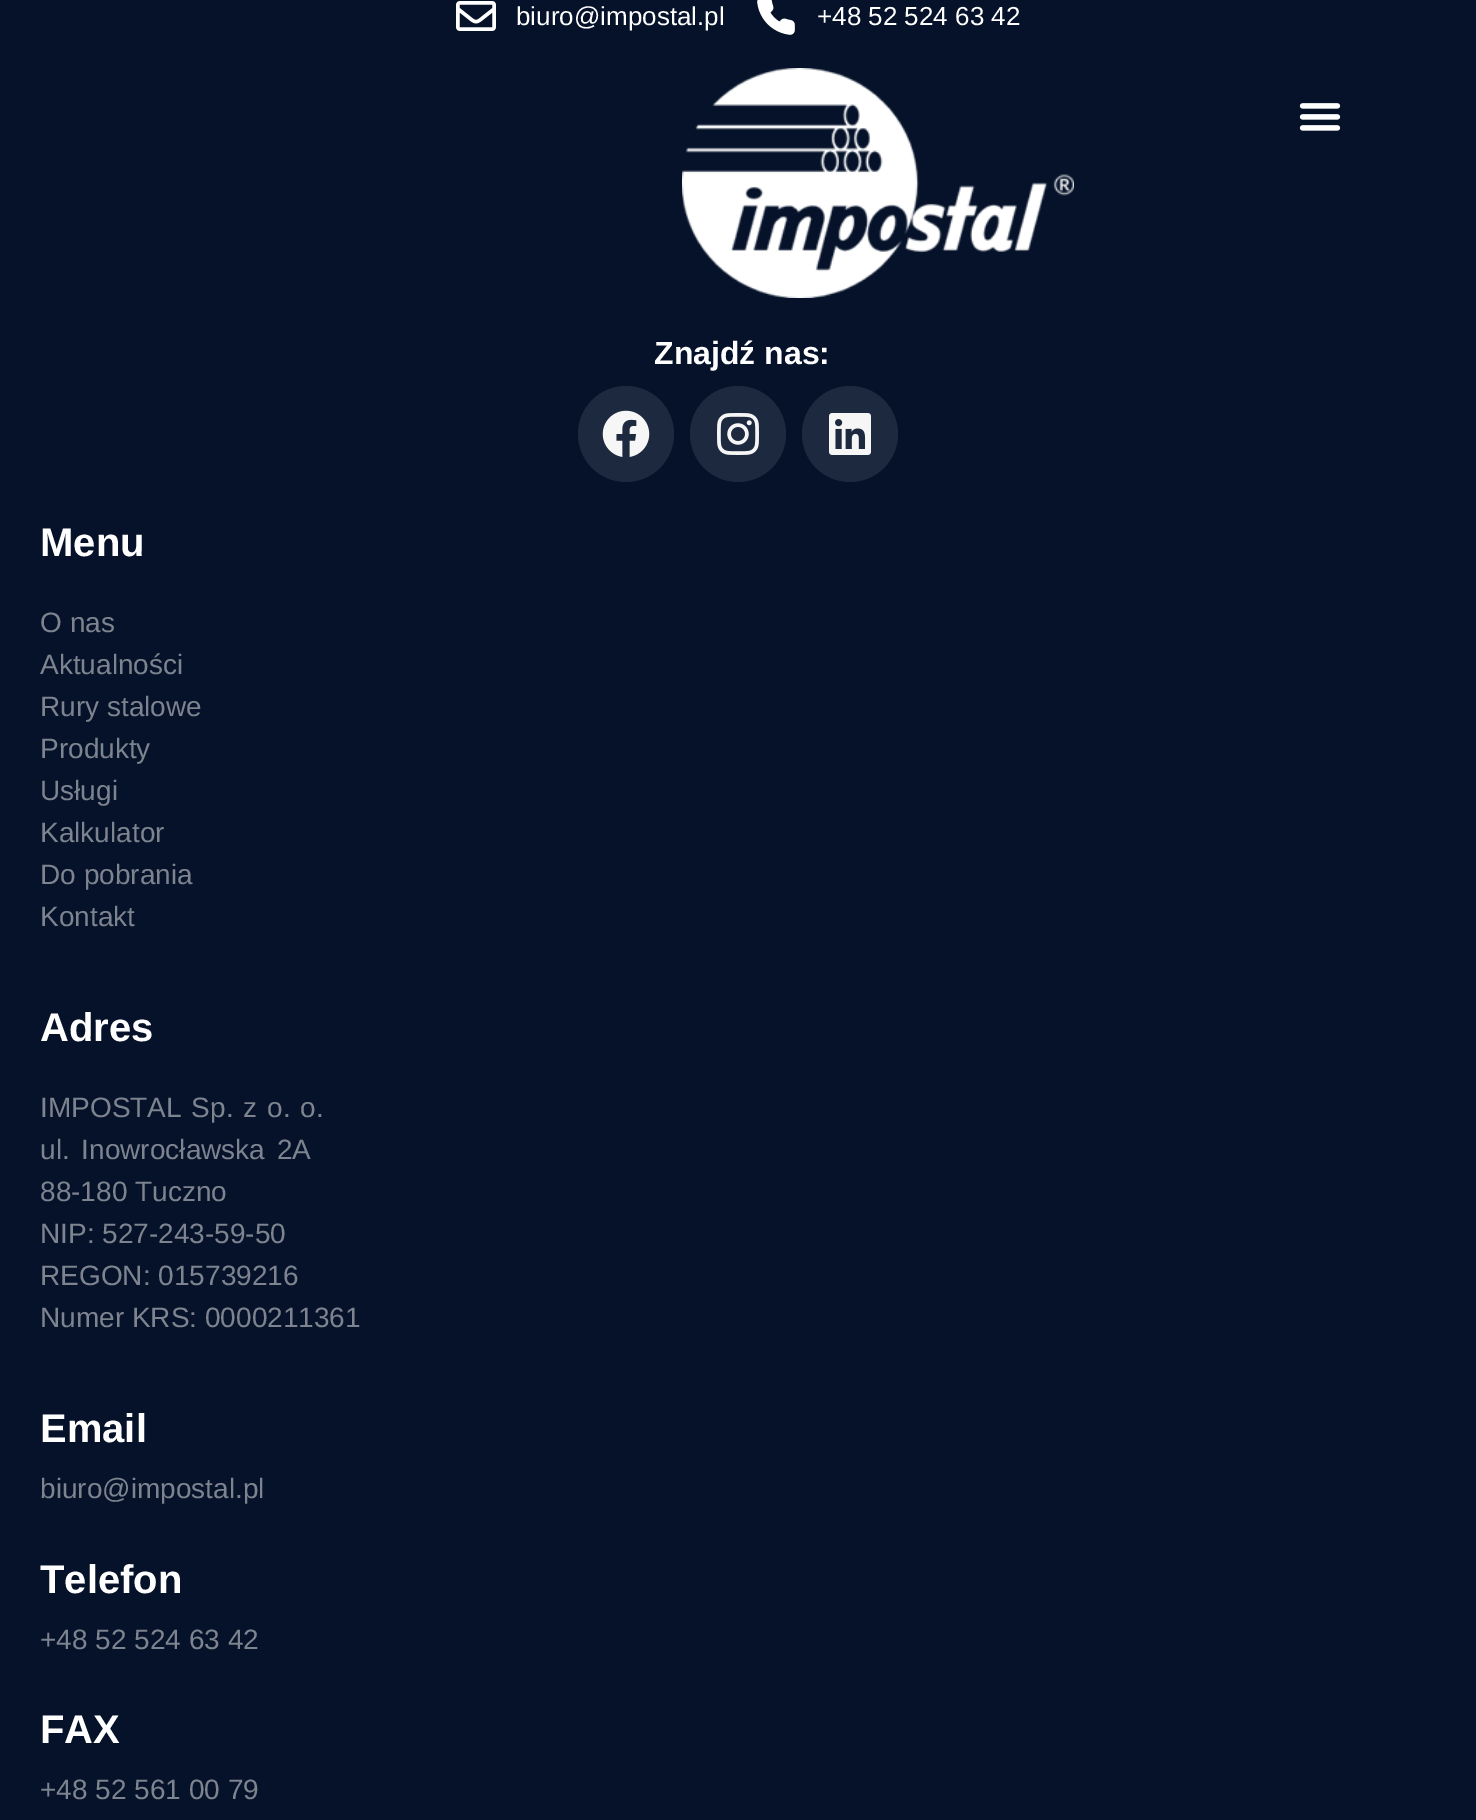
%!PS
<< /PageSize [1476 1820] >> setpagedevice
/rgb { 3 { 255 div 3 1 roll } repeat setrgbcolor } def
/font { [ exch dup neg 0 0 3 -1 roll 0 0 ] selectfont } def
/circle { newpath 0 360 arc closepath } def
/picture { 5 dict begin { /h /w /y /x /name } { exch def } forall
  gsave x y translate w h scale
  w h 8 [w 0 0 h 0 0] name (r) file false 3 colorimage grestore end } def
0 1820 translate 1 -1 scale
4 setmiterlimit
5 18 41 rgb
0 0 1476 1820 rectfill
(img/1.rgb) 456 1 40 30 picture
(img/2.rgb) 757 0 38 35 picture
(img/3.rgb) 1299 103 42 28 picture
(img/4.rgb) 682 68 392 230 picture
29 41 62 rgb
626 434 48 circle fill
(img/5.rgb) 602 410 48 47 picture
738 434 48 circle fill
(img/6.rgb) 717 413 42 42 picture
850 434 48 circle fill
(img/7.rgb) 829 413 42 42 picture
/LiberationSans-Regular 26 font
255 255 255 rgb
516 25 moveto (biuro@impostal.pl) show
817 25 moveto (+48 52 524 63 42) show
/LiberationSans-Bold 32 font
654 364 moveto (Znajdź nas:) show
/LiberationSans-Bold 40 font
40 556 moveto (Menu) show
/LiberationSans-Regular 28 font
125 132 144 rgb
[
  [(O nas) 40 632]
  [(Aktualności) 40 674]
  [(Rury stalowe) 40 716]
  [(Produkty) 40 758]
  [(Usługi) 40 800]
  [(Kalkulator) 40 842]
  [(Do pobrania) 40 884]
  [(Kontakt) 40 926]
] { aload pop moveto show } forall
/LiberationSans-Bold 40 font
255 255 255 rgb
40 1041 moveto (Adres) show
/LiberationSans-Regular 28 font
125 132 144 rgb
40 1117 moveto 2 0 32 (IMPOSTAL Sp. z o. o.) widthshow
40 1159 moveto 4 0 32 (ul. Inowrocławska 2A) widthshow
[
  [(88-180 Tuczno) 40 1201]
  [(NIP: 527-243-59-50) 40 1243]
  [(REGON: 015739216) 40 1285]
  [(Numer KRS: 0000211361) 40 1327]
] { aload pop moveto show } forall
/LiberationSans-Bold 40 font
255 255 255 rgb
40 1442 moveto (Email) show
/LiberationSans-Regular 28 font
125 132 144 rgb
40 1498 moveto (biuro@impostal.pl) show
/LiberationSans-Bold 40 font
255 255 255 rgb
40 1593 moveto (Telefon) show
/LiberationSans-Regular 28 font
125 132 144 rgb
40 1649 moveto (+48 52 524 63 42) show
/LiberationSans-Bold 40 font
255 255 255 rgb
40 1743 moveto (FAX) show
/LiberationSans-Regular 28 font
125 132 144 rgb
40 1799 moveto (+48 52 561 00 79) show
showpage
